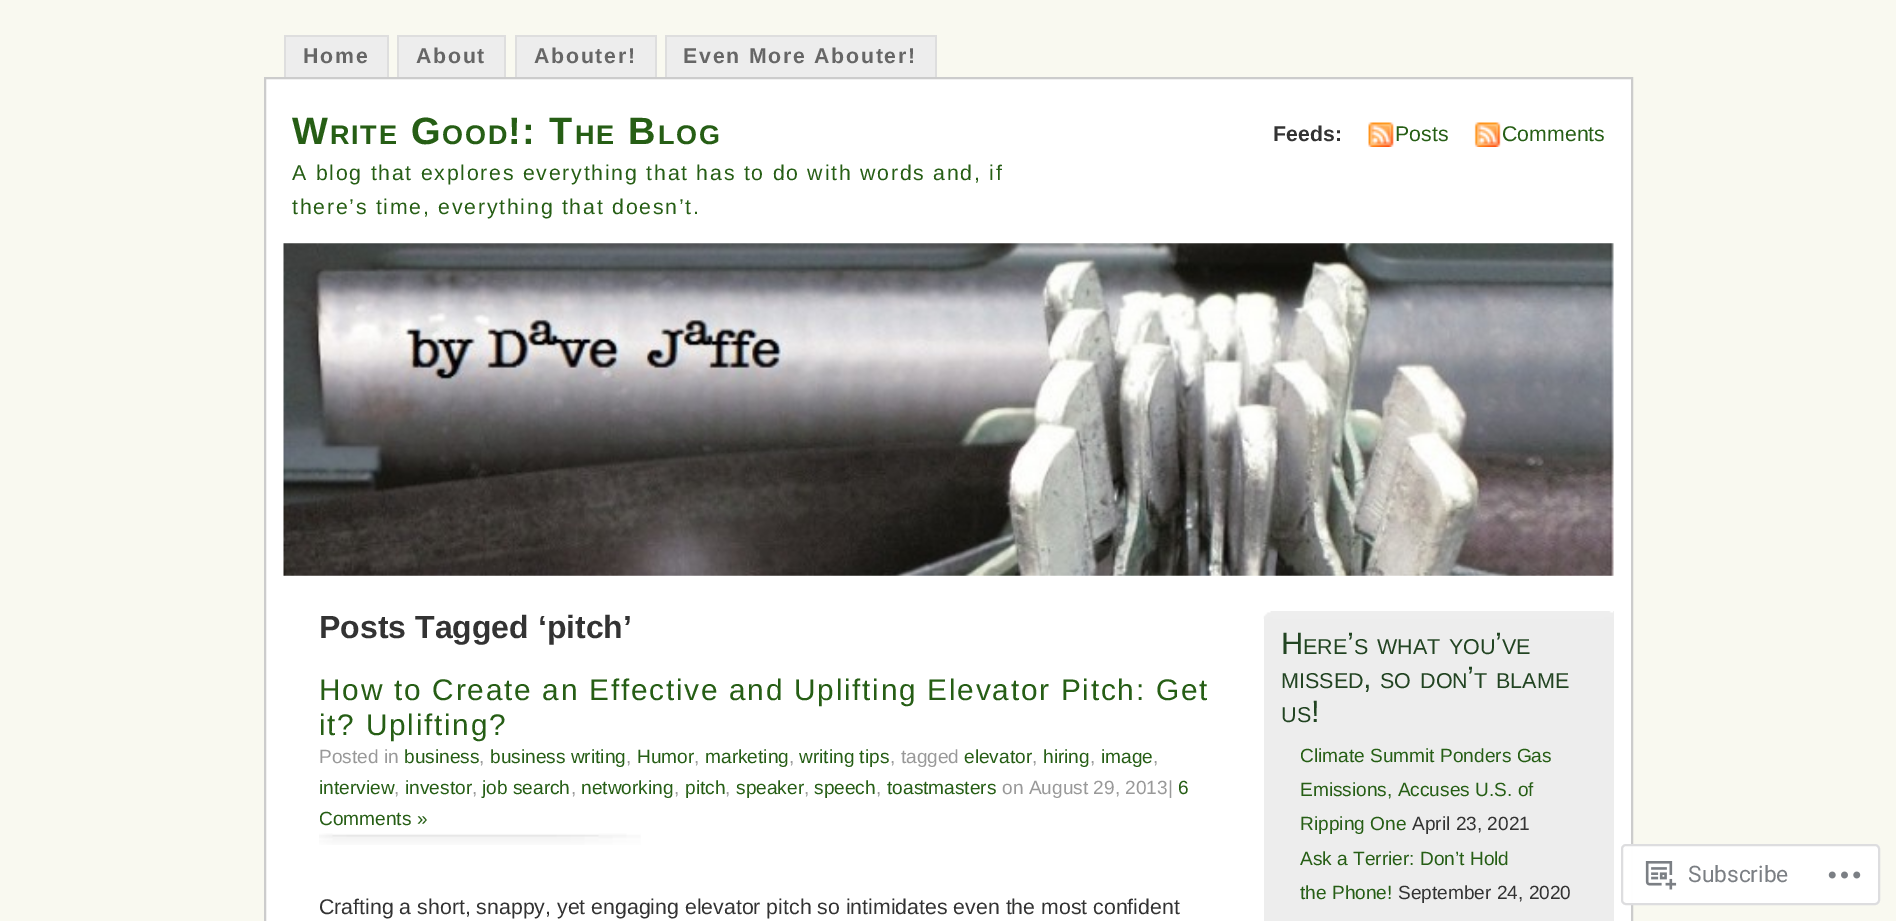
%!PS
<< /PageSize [1896 921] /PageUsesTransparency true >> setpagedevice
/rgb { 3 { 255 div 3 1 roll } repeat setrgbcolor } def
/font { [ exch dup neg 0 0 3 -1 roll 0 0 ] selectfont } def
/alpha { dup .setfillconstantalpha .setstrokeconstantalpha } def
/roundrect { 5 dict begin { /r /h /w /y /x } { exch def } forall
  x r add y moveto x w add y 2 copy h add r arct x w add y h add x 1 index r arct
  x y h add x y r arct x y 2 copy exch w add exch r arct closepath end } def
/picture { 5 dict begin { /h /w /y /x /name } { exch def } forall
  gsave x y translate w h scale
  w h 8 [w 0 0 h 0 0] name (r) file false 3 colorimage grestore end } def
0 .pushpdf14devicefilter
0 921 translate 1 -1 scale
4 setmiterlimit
249 249 240 rgb
0 0 1896 921 rectfill
[
  [286 37 101 40 237 237 237]
  [284 35 105 2 222 222 222]
  [387 35 2 42 222 222 222]
  [284 35 2 42 222 222 222]
  [399 37 105 40 237 237 237]
  [397 35 109 2 222 222 222]
  [504 35 2 42 222 222 222]
  [397 35 2 42 222 222 222]
  [517 37 138 40 237 237 237]
  [515 35 141 2 222 222 222]
  [655 35 2 42 222 222 222]
  [515 35 2 42 222 222 222]
  [667 37 268 40 237 237 237]
  [665 35 271 2 222 222 222]
  [935 35 2 42 222 222 222]
  [665 35 2 42 222 222 222]
] { aload pop rgb rectfill } forall
255 255 255 rgb
265 78 moveto 1632 78 lineto 1632 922 lineto 265 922 lineto closepath gsave fill grestore
204 204 204 rgb
2 setlinewidth
stroke
(img/1.rgb) 1368 122 26 25 picture
(img/2.rgb) 1474 122 27 25 picture
(img/3.rgb) 283 243 1331 333 picture
(img/4.rgb) 319 833 322 12 picture
237 237 237 rgb
1264 611 350 310 rectfill
(img/5.rgb) 1263 611 351 8 picture
0.98 alpha
255 255 255 rgb
1621 844 259 61 5 roundrect fill
220 220 222 rgb
1622 845 257 59 4 roundrect stroke
1 alpha
(img/6.rgb) 1645 861 32 29 picture
(img/7.rgb) 1828 871 33 8 picture
/LiberationSans-Bold 21.3 font
102 102 102 rgb
303 63 moveto 1.75 0 (Home) ashow
416 63 moveto 1.75 0 (About) ashow
534 63 moveto 1.75 0 (Abouter!) ashow
683 63 moveto 1.75 0 (Even More Abouter!) ashow
/LiberationSans-Bold 38 font
38 94 21 rgb
292 144 moveto 1.75 0 (W) ashow
/LiberationSans-Bold 27 font
330 144 moveto 1.75 0 (RITE) ashow
/LiberationSans-Bold 38 font
411 144 moveto 1.75 0 (G) ashow
/LiberationSans-Bold 27 font
442 144 moveto 1.75 0 (OOD) ashow
/LiberationSans-Bold 38 font
508 144 moveto 1.75 0 (!: T) ashow
/LiberationSans-Bold 27 font
575 144 moveto 1.75 0 (HE) ashow
/LiberationSans-Bold 38 font
628 144 moveto 1.75 0 (B) ashow
/LiberationSans-Bold 27 font
658 144 moveto 1.75 0 (LOG) ashow
/LiberationSans-Regular 21.3 font
292 180 moveto 1.75 0 (A blog that explores everything that has to do with words and, if) ashow
292 214 moveto 1.75 0 (there’s time, everything that doesn’t.) ashow
/LiberationSans-Bold 21.3 font
51 51 51 rgb
1273 141 moveto (Feeds:) show
/LiberationSans-Regular 21.3 font
38 94 21 rgb
1395 141 moveto (Posts) show
1502 141 moveto (Comments) show
/LiberationSans-Bold 32 font
51 51 51 rgb
319 638 moveto (Posts Tagged ‘pitch’) show
/LiberationSans-Regular 29.8 font
38 94 21 rgb
319 700 moveto 1.75 0 (How to Create an Effective and Uplifting Elevator Pitch: Get) ashow
319 735 moveto 1.75 0 (it? Uplifting?) ashow
/LiberationSans-Regular 19.1 font
153 153 153 rgb
319 763 moveto (Posted in) show
38 94 21 rgb
404 763 moveto (business) show
153 153 153 rgb
479 763 moveto (,) show
38 94 21 rgb
490 763 moveto (business writing) show
153 153 153 rgb
626 763 moveto (,) show
38 94 21 rgb
637 763 moveto (Humor) show
153 153 153 rgb
694 763 moveto (,) show
38 94 21 rgb
705 763 moveto (marketing) show
153 153 153 rgb
789 763 moveto (,) show
38 94 21 rgb
799 763 moveto (writing tips) show
153 153 153 rgb
890 763 moveto (, tagged) show
38 94 21 rgb
964 763 moveto (elevator) show
153 153 153 rgb
1032 763 moveto (,) show
38 94 21 rgb
1043 763 moveto (hiring) show
153 153 153 rgb
1090 763 moveto (,) show
38 94 21 rgb
1101 763 moveto (image) show
153 153 153 rgb
1153 763 moveto (,) show
38 94 21 rgb
319 794 moveto (interview) show
153 153 153 rgb
394 794 moveto (,) show
38 94 21 rgb
405 794 moveto (investor) show
153 153 153 rgb
472 794 moveto (,) show
38 94 21 rgb
482 794 moveto (job search) show
153 153 153 rgb
571 794 moveto (,) show
38 94 21 rgb
581 794 moveto (networking) show
153 153 153 rgb
674 794 moveto (,) show
38 94 21 rgb
685 794 moveto (pitch) show
153 153 153 rgb
725 794 moveto (,) show
38 94 21 rgb
736 794 moveto (speaker) show
153 153 153 rgb
804 794 moveto (,) show
38 94 21 rgb
814 794 moveto (speech) show
153 153 153 rgb
876 794 moveto (,) show
38 94 21 rgb
887 794 moveto (toastmasters) show
153 153 153 rgb
1002 794 moveto (on August 29, 2013|) show
38 94 21 rgb
1178 794 moveto (6) show
319 825 moveto (Comments ») show
/LiberationSans-Regular 21.3 font
51 51 51 rgb
319 914 moveto (Crafting a short, snappy, yet engaging elevator pitch so intimidates even the most confident) show
/LiberationSans-Regular 31 font
34 68 34 rgb
[
  [(H) 1281 654]
  [(’) 1347 654]
  [(’) 1495 654]
] { aload pop moveto show } forall
/LiberationSans-Regular 21.5 font
[
  [(ERE) 1303 654]
  [(S) 1354 654]
  [(WHAT) 1377 654]
  [(YOU) 1449 654]
  [(VE) 1502 654]
] { aload pop moveto show } forall
/LiberationSans-Regular 31 font
1467 688 moveto (’) show
/LiberationSans-Regular 21.5 font
1281 688 moveto (MISSED) show
/LiberationSans-Regular 31 font
1363 688 moveto (,) show
/LiberationSans-Regular 21.5 font
[
  [(SO) 1380 688]
  [(DON) 1420 688]
  [(T) 1474 688]
  [(BLAME) 1496 688]
  [(US) 1281 722]
] { aload pop moveto show } forall
/LiberationSans-Regular 31 font
1311 722 moveto (!) show
/LiberationSans-Regular 19.1 font
38 94 21 rgb
[
  [(Climate Summit Ponders Gas) 1300 762]
  [(Emissions, Accuses U.S. of) 1300 796]
  [(Ripping One) 1300 830]
] { aload pop moveto show } forall
51 51 51 rgb
1412 830 moveto (April 23, 2021) show
38 94 21 rgb
1300 865 moveto (Ask a Terrier: Don’t Hold) show
1300 899 moveto (the Phone!) show
51 51 51 rgb
1398 899 moveto (September 24, 2020) show
/Roboto-Regular 22.75 font
123 127 132 rgb
1688 882 moveto (Subscribe) show
.poppdf14devicefilter showpage
